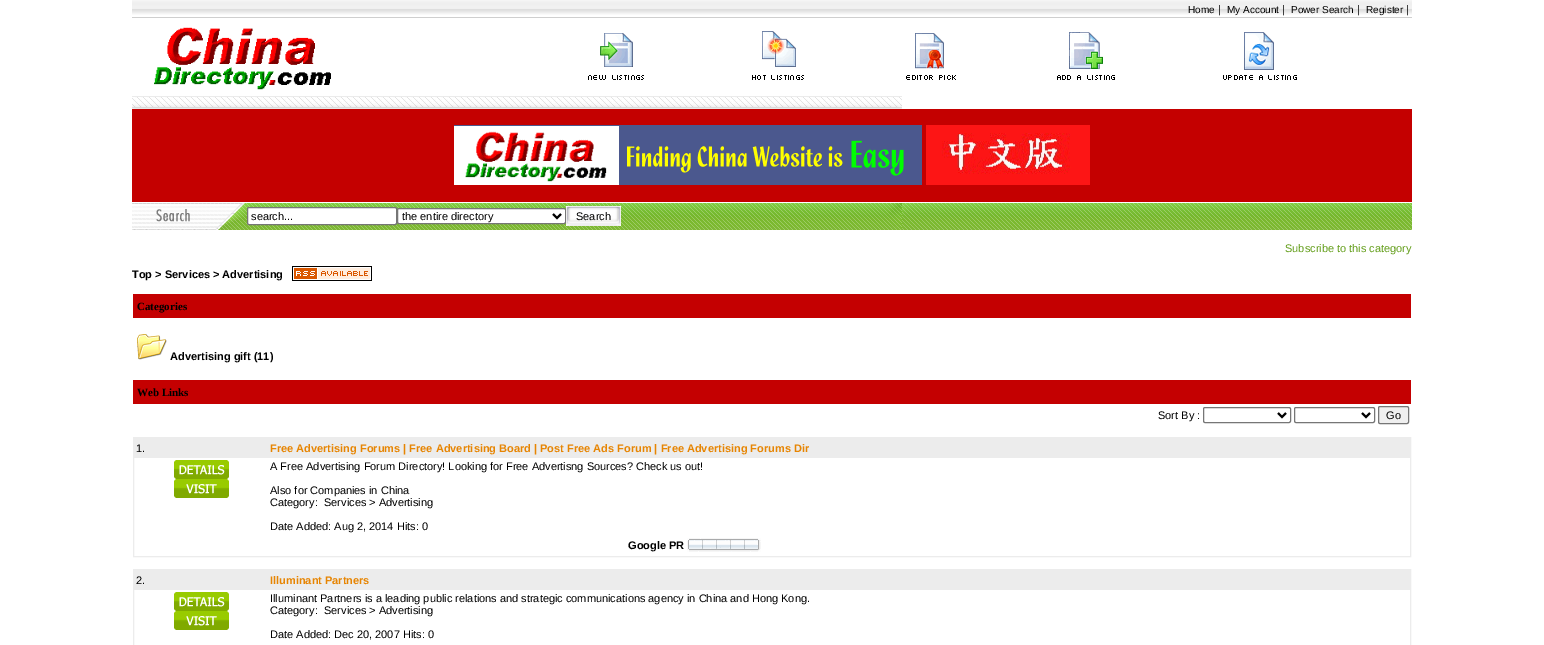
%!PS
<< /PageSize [1544 645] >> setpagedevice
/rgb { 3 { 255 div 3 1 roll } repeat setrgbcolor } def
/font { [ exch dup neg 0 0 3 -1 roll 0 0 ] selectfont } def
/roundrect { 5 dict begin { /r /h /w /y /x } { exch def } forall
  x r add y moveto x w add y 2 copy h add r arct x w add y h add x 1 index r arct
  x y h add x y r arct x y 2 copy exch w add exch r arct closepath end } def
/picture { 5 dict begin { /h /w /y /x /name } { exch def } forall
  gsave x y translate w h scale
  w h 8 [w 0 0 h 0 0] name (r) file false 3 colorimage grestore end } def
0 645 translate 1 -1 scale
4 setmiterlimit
255 255 255 rgb
0 0 1544 645 rectfill
(img/1.rgb) 132 0 1280 18 picture
(img/2.rgb) 154 27 177 63 picture
(img/3.rgb) 588 33 56 47 picture
(img/4.rgb) 752 31 52 49 picture
(img/5.rgb) 906 33 50 47 picture
(img/6.rgb) 1057 32 58 48 picture
(img/7.rgb) 1223 32 74 48 picture
(img/8.rgb) 132 96 770 13 picture
196 0 0 rgb
132 109 1280 93 rectfill
(img/9.rgb) 454 125 468 60 picture
(img/10.rgb) 926 125 164 60 picture
(img/11.rgb) 132 203 115 27 picture
(img/12.rgb) 247 203 1165 27 picture
255 255 255 rgb
247.5 207.5 149 17 1.5 roundrect gsave fill grestore
118 118 118 rgb
stroke
255 255 255 rgb
397.5 208.5 168 15 1.5 roundrect gsave fill grestore
118 118 118 rgb
stroke
0 0 0 rgb
2 setlinewidth
553 214 moveto 557 218 lineto 561 214 lineto stroke
(img/13.rgb) 566 206 55 20 picture
(img/14.rgb) 292 266 80 15 picture
196 0 1 rgb
133 294 1278 24 rectfill
(img/15.rgb) 137 334 30 26 picture
133 380 1278 24 rectfill
118 118 118 rgb
1 setlinewidth
1203.5 407.5 87 15 1.5 roundrect stroke
0 0 0 rgb
2 setlinewidth
1278 413 moveto 1282 417 lineto 1286 413 lineto stroke
118 118 118 rgb
1 setlinewidth
1294.5 407.5 80 15 1.5 roundrect stroke
0 0 0 rgb
2 setlinewidth
1362 413 moveto 1366 417 lineto 1370 413 lineto stroke
239 239 239 rgb
1378.5 406.5 30 17 1.5 roundrect gsave fill grestore
118 118 118 rgb
1 setlinewidth
stroke
236 236 236 rgb
133.5 437.5 1277 119 rectstroke
134 438 1276 20 rectfill
(img/16.rgb) 174 460 55 19 picture
(img/17.rgb) 174 479 55 19 picture
(img/18.rgb) 687 538 74 14 picture
133.5 569.5 1277 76 rectstroke
134 570 1276 20 rectfill
(img/16.rgb) 174 592 55 19 picture
(img/17.rgb) 174 611 55 19 picture
/LiberationSans-Regular 10 font
0 0 0 rgb
1188 13 moveto (Home) show
/LiberationSans-Regular 11 font
1218 13 moveto (|) show
/LiberationSans-Regular 10 font
1227 13 moveto (My Account) show
/LiberationSans-Regular 11 font
1282 13 moveto (|) show
/LiberationSans-Regular 10 font
1291 13 moveto (Power Search) show
/LiberationSans-Regular 11 font
1357 13 moveto (|) show
/LiberationSans-Regular 10 font
1366 13 moveto (Register) show
/LiberationSans-Regular 11 font
[
  [(|) 1406 13]
  [(search...) 251 220]
  [(the entire directory) 402 220]
  [(Search) 576 220]
] { aload pop moveto show } forall
99 158 26 rgb
1285 252 moveto (Subscribe to this category) show
/LiberationSans-Bold 11 font
0 0 0 rgb
132 278 moveto (Top > Services > Advertising) show
/LiberationSerif-Bold 11 font
137 310 moveto (Categories) show
/LiberationSans-Bold 11 font
170 360 moveto (Advertising gift \(11\)) show
/LiberationSerif-Bold 11 font
137 396 moveto (Web Links) show
/LiberationSans-Regular 11 font
[
  [(Sort By :) 1158 419]
  [(Go) 1386 419]
  [(1.) 136 452]
] { aload pop moveto show } forall
/LiberationSans-Bold 11 font
231 133 2 rgb
270 452 moveto (Free Advertising Forums | Free Advertising Board | Post Free Ads Forum | Free Advertising Forums Dir) show
/LiberationSans-Regular 11 font
0 0 0 rgb
[
  [(A Free Advertising Forum Directory! Looking for Free Advertisng Sources? Check us out!) 270 470]
  [(Also for Companies in China) 270 494]
  [(Category:) 270 506]
  [(Services > Advertising) 324 506]
  [(Date Added: Aug 2, 2014 Hits: 0) 270 530]
] { aload pop moveto show } forall
/LiberationSans-Bold 11 font
628 549 moveto (Google PR) show
/LiberationSans-Regular 11 font
136 584 moveto (2.) show
/LiberationSans-Bold 11 font
231 133 2 rgb
270 584 moveto (Illuminant Partners) show
/LiberationSans-Regular 11 font
0 0 0 rgb
[
  [(Illuminant Partners is a leading public relations and strategic communications agency in China and Hong Kong.) 270 602]
  [(Category:) 270 614]
  [(Services > Advertising) 324 614]
  [(Date Added: Dec 20, 2007 Hits: 0) 270 638]
] { aload pop moveto show } forall
showpage
